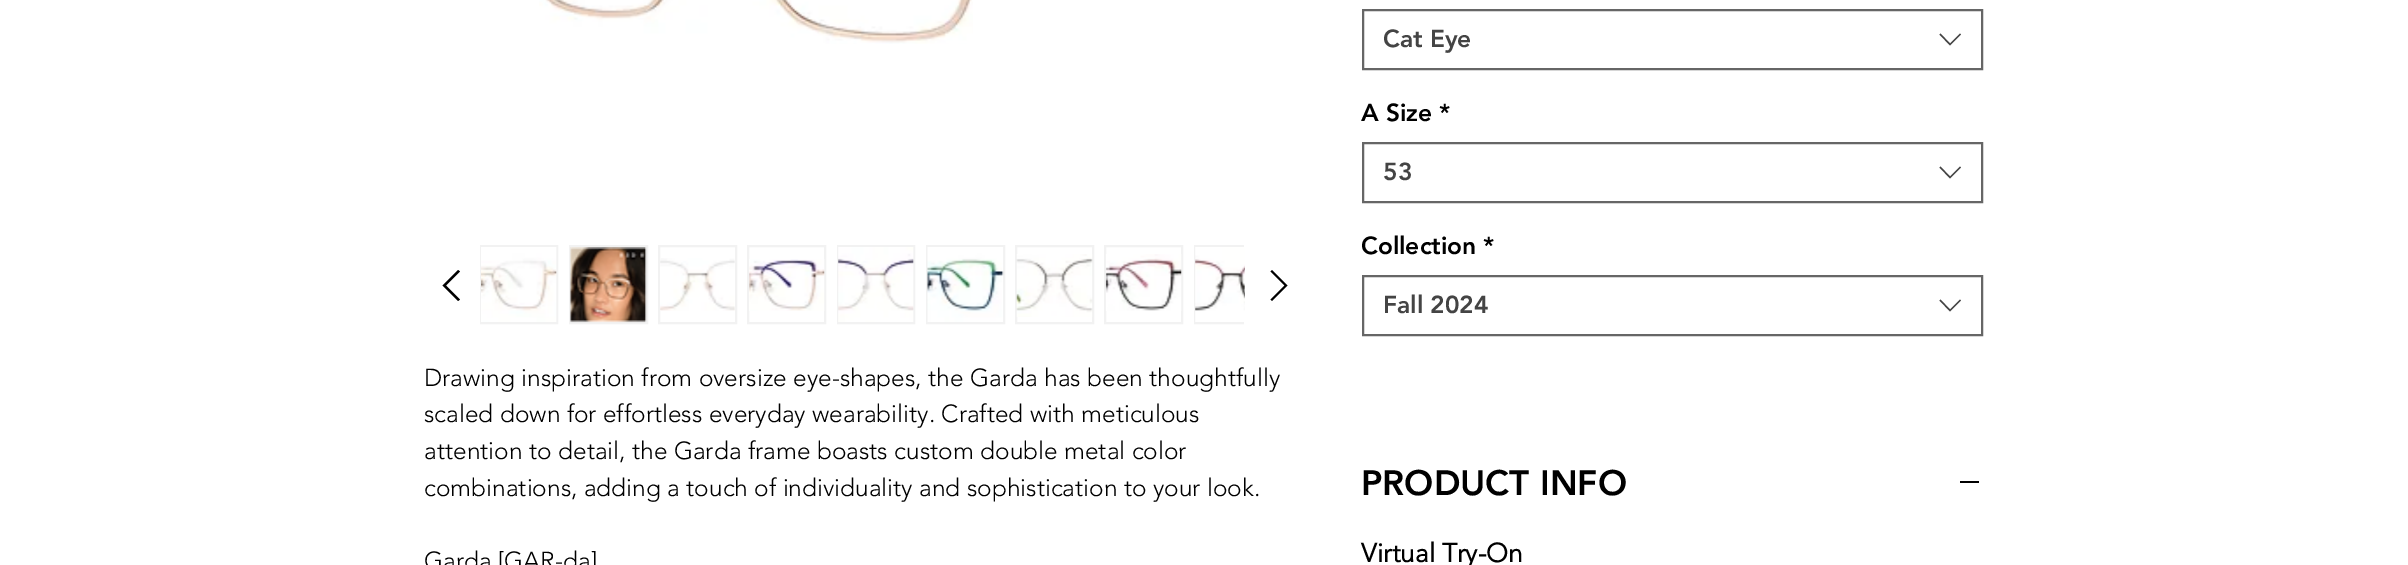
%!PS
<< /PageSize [2408 565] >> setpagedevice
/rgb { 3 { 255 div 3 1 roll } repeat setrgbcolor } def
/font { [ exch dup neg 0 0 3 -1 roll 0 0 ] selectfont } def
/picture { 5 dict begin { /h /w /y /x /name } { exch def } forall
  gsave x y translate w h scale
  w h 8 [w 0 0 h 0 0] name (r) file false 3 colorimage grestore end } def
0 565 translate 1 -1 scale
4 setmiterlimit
255 255 255 rgb
0 0 2408 565 rectfill
(img/1.rgb) 539 0 434 44 picture
0 0 0 rgb
458 270 moveto 460 271.5 lineto 446 285.5 lineto 460 299.5 lineto 458 301 lineto 442.5 285.5 lineto closepath eofill
242 242 242 rgb
2 setlinewidth
481 246 76 77 rectstroke
(img/2.rgb) 481 247 76 75 picture
570 246 77 77 rectstroke
(img/3.rgb) 570 247 77 76 picture
659 246 77 77 rectstroke
(img/4.rgb) 660 258 75 53 picture
748 246 77 77 rectstroke
(img/5.rgb) 749 259 76 52 picture
838 246 76 77 rectstroke
(img/6.rgb) 838 247 76 75 picture
927 246 77 77 rectstroke
(img/7.rgb) 927 247 77 75 picture
1016 246 77 77 rectstroke
(img/8.rgb) 1016 254 77 63 picture
1105 246 77 77 rectstroke
(img/9.rgb) 1105 254 77 57 picture
0 0 0 rgb
1272 270 moveto 1287.5 285.5 lineto 1272 301 lineto 1270.5 299.5 lineto 1284.5 285.5 lineto 1270.5 271.5 lineto closepath eofill
gsave
473 238 771 93 rectclip
242 242 242 rgb
1195 246 76 77 rectstroke
grestore
(img/10.rgb) 1195 247 50 75 picture
102 102 102 rgb
1363 10 619 59 rectstroke
68 68 68 rgb
1960 33.5 moveto 1961 34.5 lineto 1950 45.5 lineto 1939.5 34.5 lineto 1940.5 33.5 lineto 1950 43.5 lineto closepath eofill
102 102 102 rgb
1363 143 619 59 rectstroke
68 68 68 rgb
1960 166.5 moveto 1961 167.5 lineto 1950 178.5 lineto 1939.5 167.5 lineto 1940.5 166.5 lineto 1950 176.5 lineto closepath eofill
102 102 102 rgb
1363 276 619 59 rectstroke
68 68 68 rgb
1960 299.5 moveto 1961 300.5 lineto 1950 311.5 lineto 1939.5 300.5 lineto 1940.5 299.5 lineto 1950 309.5 lineto closepath eofill
0 0 0 rgb
1960 481 19 2 rectfill
/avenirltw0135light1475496-Light 24.5 font
[
  [(Drawing inspiration from oversize eye-shapes, the Garda has been thoughtfully) 424 386]
  [(scaled down for effortless everyday wearability. Crafted with meticulous) 424 422]
  [(attention to detail, the Garda frame boasts custom double metal color) 424 459]
  [(combinations, adding a touch of individuality and sophistication to your look.) 424 496]
  [(Garda [GAR-da]) 424 569]
] { aload pop moveto show } forall
/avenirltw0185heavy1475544-Black 24.5 font
68 68 68 rgb
1383 47 moveto (Cat Eye) show
0 0 0 rgb
1361 121 moveto (A Size *) show
68 68 68 rgb
1383 180 moveto (53) show
0 0 0 rgb
1361 254 moveto (Collection *) show
68 68 68 rgb
1383 313 moveto (Fall 2024) show
/avenirltw0185heavy1475544-Black 35 font
0 0 0 rgb
1361 495 moveto (PRODUCT INFO) show
/avenirltw0135light1475496-Bold 26.25 font
1361 562 moveto (Virtual Try-On) show
showpage
